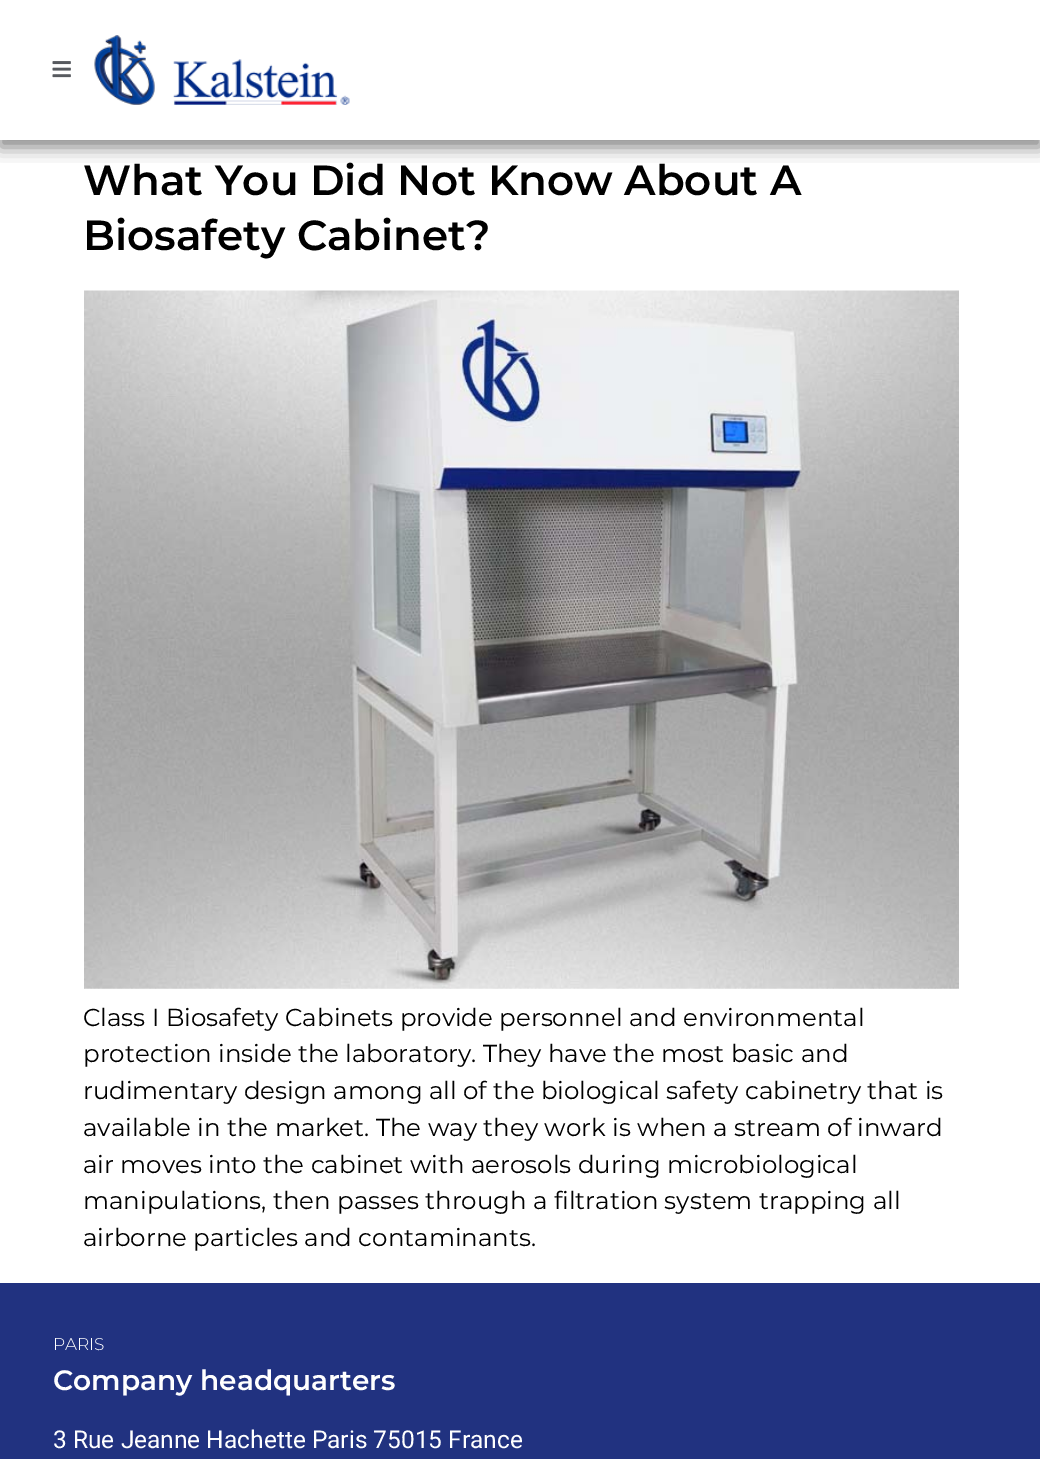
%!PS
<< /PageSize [1040 1459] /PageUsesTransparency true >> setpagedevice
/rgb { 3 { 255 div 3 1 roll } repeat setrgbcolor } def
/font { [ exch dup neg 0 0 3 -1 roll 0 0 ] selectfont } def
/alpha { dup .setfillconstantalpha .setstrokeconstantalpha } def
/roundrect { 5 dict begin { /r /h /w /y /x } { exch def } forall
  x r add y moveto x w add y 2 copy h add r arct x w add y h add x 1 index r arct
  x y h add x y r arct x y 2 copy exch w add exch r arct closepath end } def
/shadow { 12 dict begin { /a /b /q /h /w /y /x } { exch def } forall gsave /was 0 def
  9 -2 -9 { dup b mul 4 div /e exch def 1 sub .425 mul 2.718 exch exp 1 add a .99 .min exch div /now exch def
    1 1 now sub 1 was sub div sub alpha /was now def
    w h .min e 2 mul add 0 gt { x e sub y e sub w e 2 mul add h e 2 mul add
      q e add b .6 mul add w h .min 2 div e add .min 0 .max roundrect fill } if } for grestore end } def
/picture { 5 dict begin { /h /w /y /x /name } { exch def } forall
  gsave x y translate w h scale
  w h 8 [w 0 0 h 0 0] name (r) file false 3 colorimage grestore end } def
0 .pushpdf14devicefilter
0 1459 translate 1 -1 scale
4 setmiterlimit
255 255 255 rgb
0 0 1040 1459 rectfill
gsave
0 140 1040 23 rectclip
0 0 0 rgb
0 7 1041 140 0 9 0.5 shadow
grestore
(img/1.rgb) 52 61 19 17 picture
(img/2.rgb) 94 35 256 70 picture
(img/3.rgb) 84 290 875 699 picture
33 50 128 rgb
0 1283 1040 176 rectfill
/Montserrat-SemiBold 42 font
0 0 0 rgb
83 195 moveto (What You Did Not Know About A) show
83 250 moveto (Biosafety Cabinet?) show
/Montserrat-Regular 24.5 font
[
  [(Class I Biosafety Cabinets provide personnel and environmental) 83 1026]
  [(protection inside the laboratory. They have the most basic and) 83 1062]
  [(rudimentary design among all of the biological safety cabinetry that is) 83 1099]
  [(available in the market. The way they work is when a stream of inward) 83 1136]
  [(air moves into the cabinet with aerosols during microbiological) 83 1173]
  [(manipulations, then passes through a filtration system trapping all) 83 1209]
  [(airborne particles and contaminants.) 83 1246]
] { aload pop moveto show } forall
/Montserrat-Light 17 font
255 255 255 rgb
53 1350 moveto (PARIS) show
/Montserrat-SemiBold 28 font
53 1390 moveto (Company headquarters) show
/Roboto-Regular 24.5 font
53 1448 moveto (3 Rue Jeanne Hachette Paris 75015 France) show
.poppdf14devicefilter showpage
